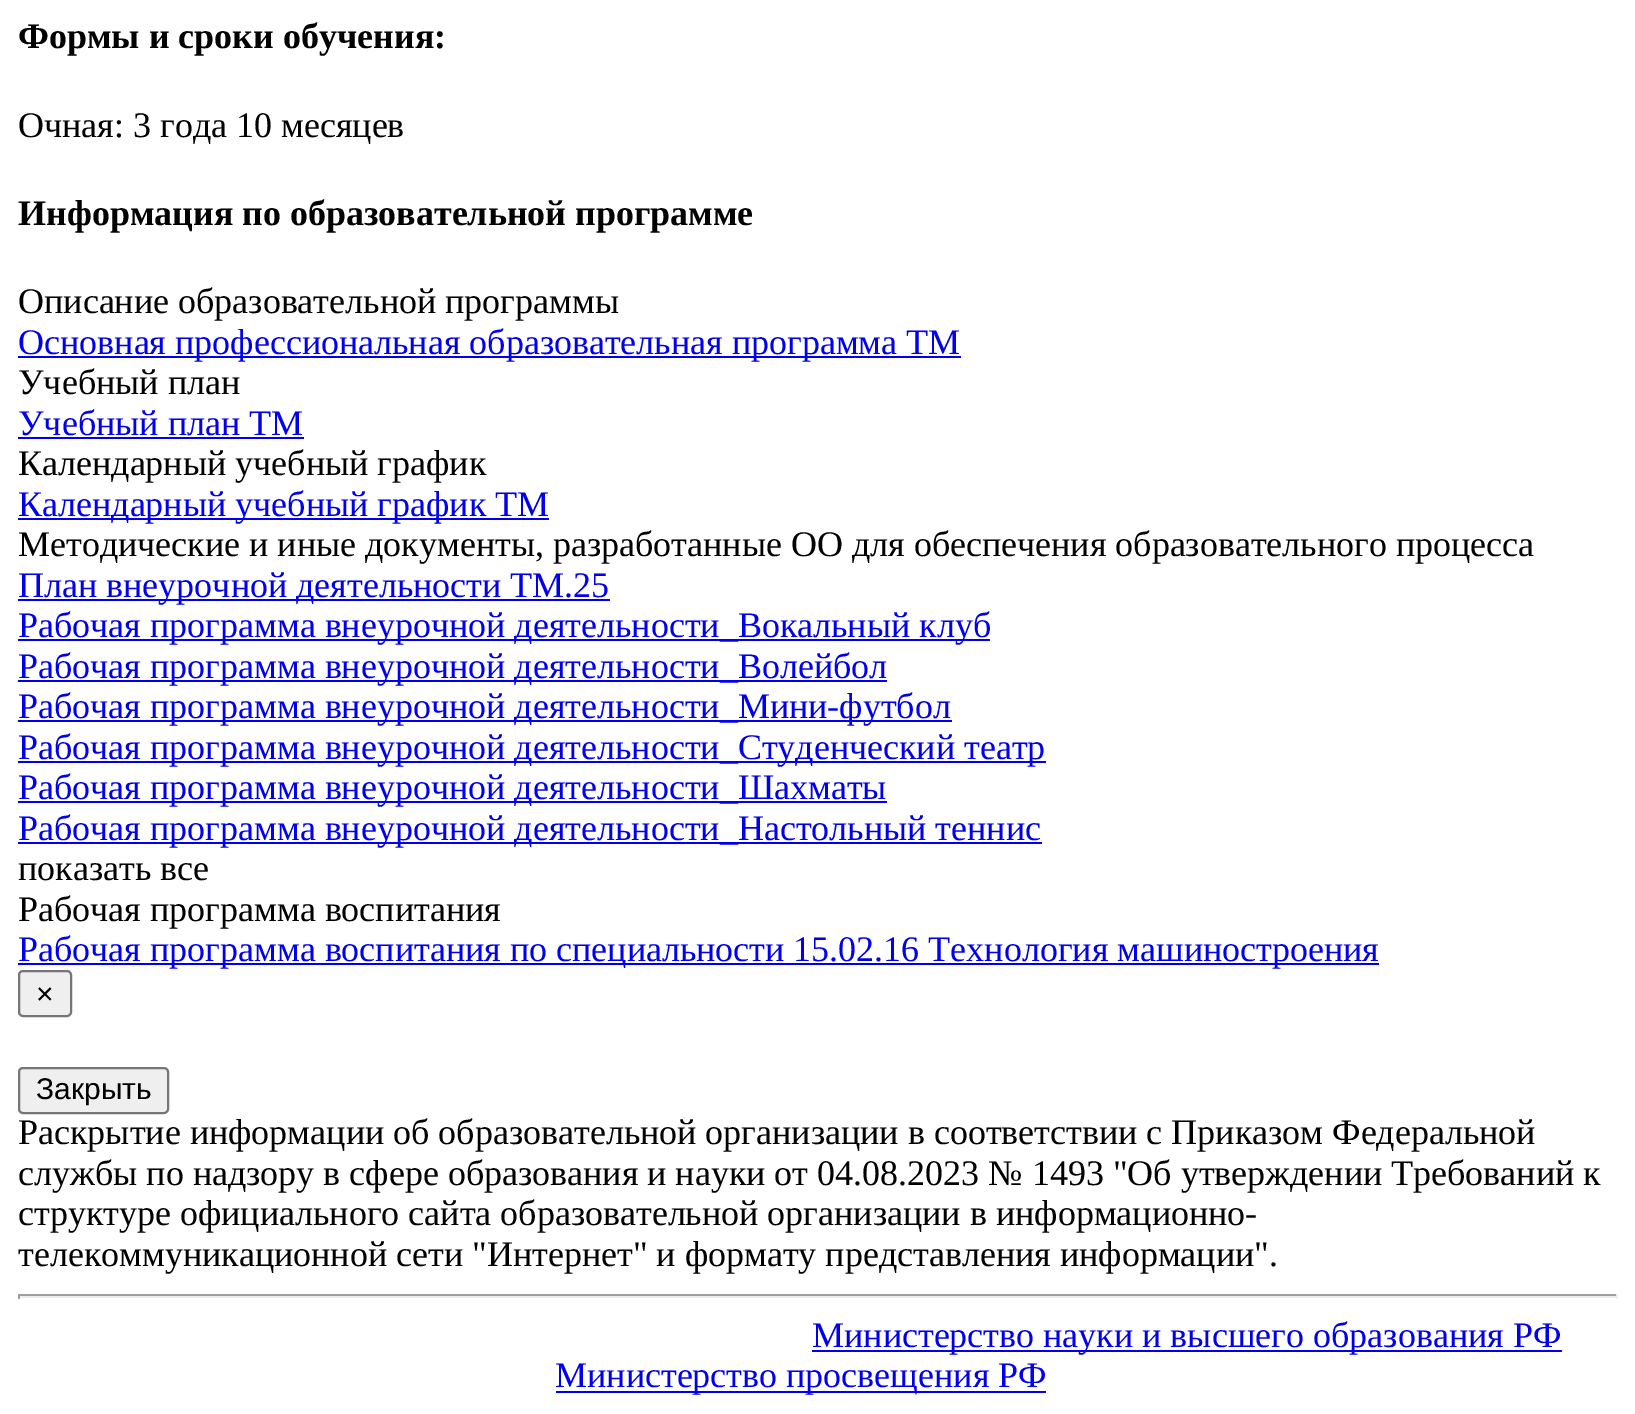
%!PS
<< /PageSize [1635 1414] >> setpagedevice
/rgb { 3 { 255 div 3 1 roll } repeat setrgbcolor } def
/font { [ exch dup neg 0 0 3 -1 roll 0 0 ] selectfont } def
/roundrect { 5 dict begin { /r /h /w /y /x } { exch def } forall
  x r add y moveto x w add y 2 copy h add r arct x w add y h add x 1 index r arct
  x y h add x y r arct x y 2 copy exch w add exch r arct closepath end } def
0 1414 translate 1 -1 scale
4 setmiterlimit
255 255 255 rgb
0 0 1635 1414 rectfill
[
  [18 356 943 2 0 0 238]
  [18 437 286 2 0 0 238]
  [18 518 531 2 0 0 238]
  [18 599 592 2 0 0 238]
  [18 639 972 2 0 0 238]
  [18 680 869 2 0 0 238]
  [18 720 934 2 0 0 238]
  [18 761 1028 2 0 0 238]
  [18 801 869 2 0 0 238]
  [18 842 1024 2 0 0 238]
  [18 963 1361 2 0 0 238]
] { aload pop rgb rectfill } forall
239 239 239 rgb
19 971 52 45 4 roundrect gsave fill grestore
118 118 118 rgb
2 setlinewidth
stroke
239 239 239 rgb
19 1068 149 45 4 roundrect gsave fill grestore
118 118 118 rgb
stroke
[
  [18 1294 1600 2 159 159 159]
  [1616 1294 2 5 238 238 238]
  [18 1296 1600 2 238 238 238]
  [18 1294 2 5 159 159 159]
  [812 1350 750 2 0 0 238]
  [556 1391 490 2 0 0 238]
] { aload pop rgb rectfill } forall
/LiberationSerif-Bold 36 font
0 0 0 rgb
18 48 moveto (Формы и сроки обучения:) show
/LiberationSerif-Regular 36 font
18 137 moveto (Очная: 3 года 10 месяцев) show
/LiberationSerif-Bold 36 font
18 225 moveto (Информация по образовательной программе) show
/LiberationSerif-Regular 36 font
18 313 moveto (Описание образовательной программы) show
0 0 238 rgb
18 354 moveto (Основная профессиональная образовательная программа ТМ) show
0 0 0 rgb
18 394 moveto (Учебный план) show
0 0 238 rgb
18 435 moveto (Учебный план ТМ) show
0 0 0 rgb
18 475 moveto (Календарный учебный график) show
0 0 238 rgb
18 516 moveto (Календарный учебный график ТМ) show
0 0 0 rgb
18 556 moveto (Методические и иные документы, разработанные ОО для обеспечения образовательного процесса) show
0 0 238 rgb
[
  [(План внеурочной деятельности ТМ.25) 18 597]
  [(Рабочая программа внеурочной деятельности_Вокальный клуб) 18 637]
  [(Рабочая программа внеурочной деятельности_Волейбол) 18 678]
  [(Рабочая программа внеурочной деятельности_Мини-футбол) 18 718]
  [(Рабочая программа внеурочной деятельности_Студенческий театр) 18 759]
  [(Рабочая программа внеурочной деятельности_Шахматы) 18 799]
  [(Рабочая программа внеурочной деятельности_Настольный теннис) 18 840]
] { aload pop moveto show } forall
0 0 0 rgb
18 880 moveto (показать все) show
18 921 moveto (Рабочая программа воспитания) show
0 0 238 rgb
18 961 moveto (Рабочая программа воспитания по специальности 15.02.16 Технология машиностроения) show
/LiberationSans-Regular 30 font
0 0 0 rgb
36 1004 moveto (×) show
36 1099 moveto (Закрыть) show
/LiberationSerif-Regular 36 font
[
  [(Раскрытие информации об образовательной организации в соответствии с Приказом Федеральной) 18 1144]
  [(службы по надзору в сфере образования и науки от 04.08.2023 № 1493 "Об утверждении Требований к) 18 1185]
  [(структуре официального сайта образовательной организации в информационно-) 18 1225]
  [(телекоммуникационной сети "Интернет" и формату представления информации".) 18 1266]
] { aload pop moveto show } forall
0 0 238 rgb
812 1347 moveto (Министерство науки и высшего образования РФ) show
555 1387 moveto (Министерство просвещения РФ) show
showpage
